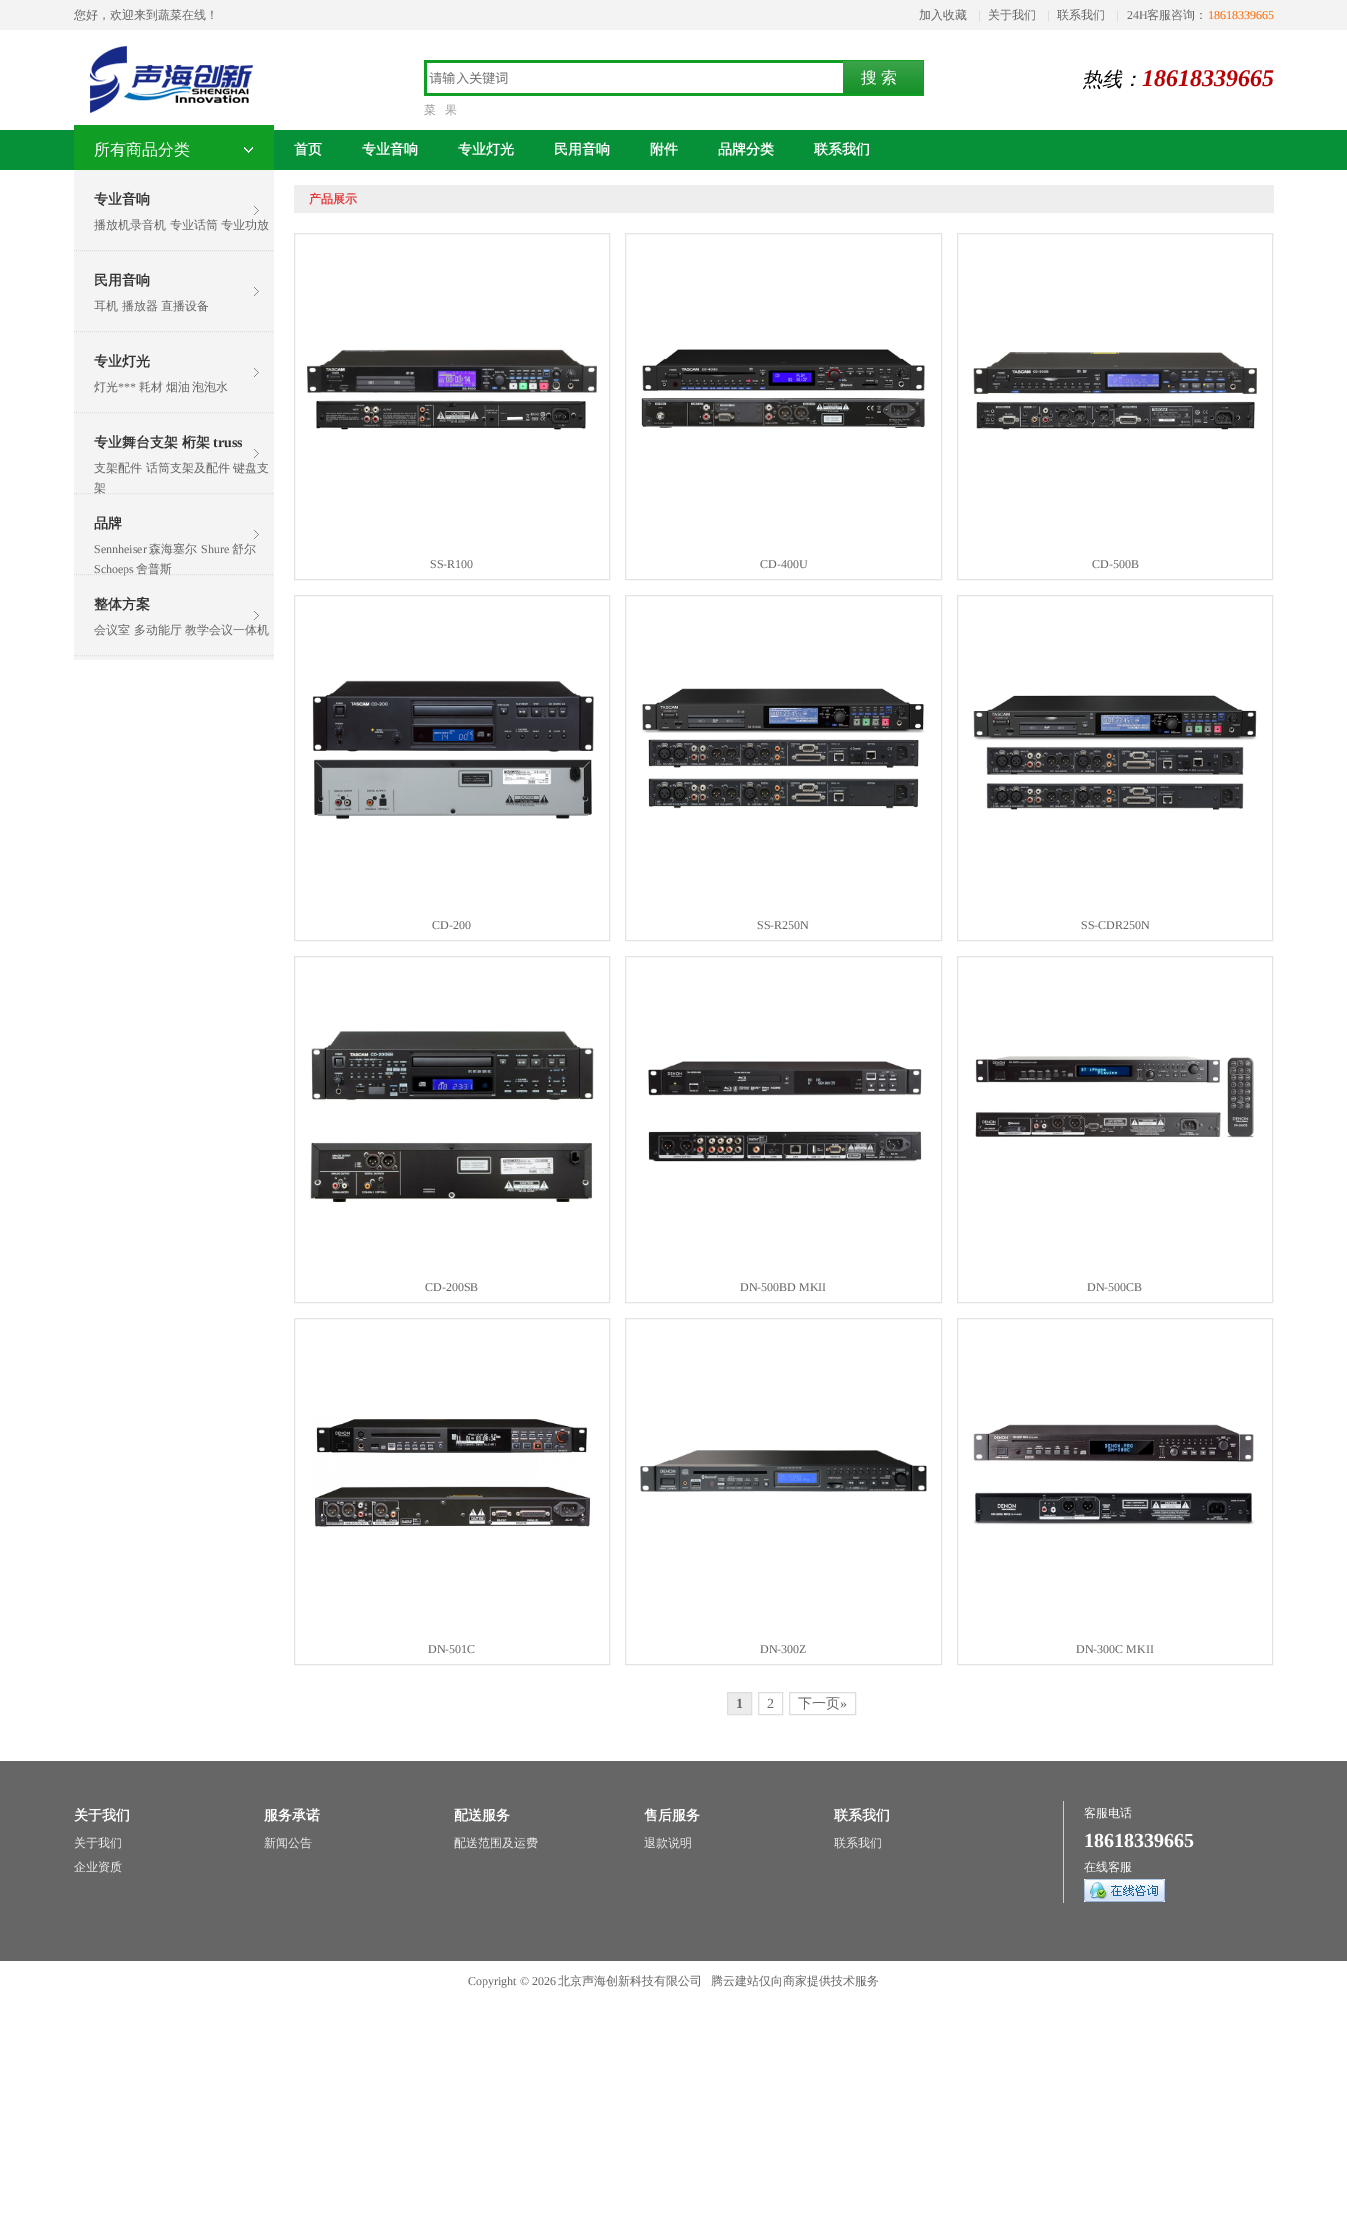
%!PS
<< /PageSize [1347 2231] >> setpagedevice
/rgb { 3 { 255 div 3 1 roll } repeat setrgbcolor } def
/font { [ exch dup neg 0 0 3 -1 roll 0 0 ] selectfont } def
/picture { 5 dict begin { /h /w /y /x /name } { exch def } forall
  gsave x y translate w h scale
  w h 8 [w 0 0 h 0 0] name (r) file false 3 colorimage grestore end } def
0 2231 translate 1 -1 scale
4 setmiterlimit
255 255 255 rgb
0 0 1347 2231 rectfill
243 243 243 rgb
0 0 1347 30 rectfill
(img/1.rgb) 90 46 163 67 picture
(img/2.rgb) 424 60 500 36 picture
6 145 57 rgb
0 130 1347 40 rectfill
16 158 37 rgb
74 125 200 45 rectfill
(img/3.rgb) 244 147 9 6 picture
244 244 244 rgb
74 170 200 490 rectfill
(img/4.rgb) 254 206 5 9 picture
221 221 221 rgb
[1 1] 0 setdash
74 250.5 moveto 274 250.5 lineto stroke
(img/4.rgb) 254 287 5 9 picture
74 331.5 moveto 274 331.5 lineto stroke
(img/4.rgb) 254 368 5 9 picture
74 412.5 moveto 274 412.5 lineto stroke
(img/4.rgb) 254 449 5 9 picture
74 493.5 moveto 274 493.5 lineto stroke
(img/4.rgb) 254 530 5 9 picture
74 574.5 moveto 274 574.5 lineto stroke
(img/4.rgb) 254 611 5 9 picture
74 655.5 moveto 274 655.5 lineto stroke
238 238 238 rgb
294 185 980 28 rectfill
228 228 228 rgb
[] 0 setdash
294.5 233.5 315 346 rectstroke
(img/5.rgb) 307 349 290 81 picture
625.5 233.5 316 346 rectstroke
(img/6.rgb) 641 349 284 80 picture
957.5 233.5 315 346 rectstroke
(img/7.rgb) 973 352 284 78 picture
294.5 595.5 315 345 rectstroke
(img/8.rgb) 312 680 282 140 picture
625.5 595.5 316 345 rectstroke
(img/9.rgb) 642 688 283 121 picture
957.5 595.5 315 345 rectstroke
(img/10.rgb) 973 695 284 115 picture
294.5 956.5 315 346 rectstroke
(img/11.rgb) 310 1030 284 173 picture
625.5 956.5 316 346 rectstroke
(img/12.rgb) 648 1061 274 101 picture
957.5 956.5 315 346 rectstroke
(img/13.rgb) 975 1056 279 82 picture
294.5 1318.5 315 346 rectstroke
(img/14.rgb) 312 1418 279 109 picture
625.5 1318.5 316 346 rectstroke
(img/15.rgb) 640 1450 287 42 picture
957.5 1318.5 315 346 rectstroke
(img/16.rgb) 973 1424 281 101 picture
236 236 236 rgb
727.5 1692.5 moveto 751.5 1692.5 lineto 751.5 1714.5 lineto 727.5 1714.5 lineto closepath gsave fill grestore
221 221 221 rgb
stroke
758.5 1692.5 24 22 rectstroke
789.5 1692.5 66 22 rectstroke
102 102 102 rgb
0 1761 1347 200 rectfill
204 204 204 rgb
1063 1801 1 102 rectfill
(img/17.rgb) 1084 1879 81 23 picture
/WenQuanYiZenHei-Medium 12 font
102 102 102 rgb
74 19 moveto (您好，欢迎来到蔬菜在线！) show
919 19 moveto (加入收藏) show
/LiberationSerif-Regular 12 font
204 204 204 rgb
978 19 moveto (|) show
/WenQuanYiZenHei-Medium 12 font
102 102 102 rgb
988 19 moveto (关于我们) show
/LiberationSerif-Regular 12 font
204 204 204 rgb
1047 19 moveto (|) show
/WenQuanYiZenHei-Medium 12 font
102 102 102 rgb
1057 19 moveto (联系我们) show
/LiberationSerif-Regular 12 font
204 204 204 rgb
1116 19 moveto (|) show
102 102 102 rgb
1127 19 moveto (24H) show
/WenQuanYiZenHei-Medium 12 font
1147 19 moveto (客服咨询：) show
/LiberationSerif-Regular 12 font
255 102 0 rgb
1208 19 moveto (18618339665) show
/NotoSansCJKSC-Regular 13.25 font
117 117 117 rgb
429 83 moveto (请输入关键词) show
/WenQuanYiZenHei-Medium 16 font
255 255 255 rgb
861 83 moveto -1 0 32 (搜 索) widthshow
/WenQuanYiZenHei-Medium 12 font
153 153 153 rgb
424 114 moveto (菜) show
445 114 moveto (果) show
/WenQuanYiZenHei-MediumItalic 20 font
1 1 1 rgb
1082 86 moveto (热线：) show
/LiberationSerif-BoldItalic 24 font
182 1 5 rgb
1142 86 moveto (18618339665) show
/WenQuanYiZenHei-Medium 16 font
255 255 255 rgb
94 155 moveto (所有商品分类) show
/WenQuanYiZenHei-Bold 14 font
51 51 51 rgb
94 204 moveto (专业音响) show
/WenQuanYiZenHei-Medium 12 font
102 102 102 rgb
94 229 moveto (播放机录音机 专业话筒 专业功放) show
/WenQuanYiZenHei-Bold 14 font
51 51 51 rgb
94 285 moveto (民用音响) show
/WenQuanYiZenHei-Medium 12 font
102 102 102 rgb
94 310 moveto (耳机 播放器 直播设备) show
/WenQuanYiZenHei-Bold 14 font
51 51 51 rgb
94 366 moveto (专业灯光) show
/WenQuanYiZenHei-Medium 12 font
102 102 102 rgb
94 391 moveto (灯光) show
/LiberationSerif-Regular 12 font
118 391 moveto (***) show
/WenQuanYiZenHei-Medium 12 font
139 391 moveto -1 0 32 (耗材 烟油 泡泡水) widthshow
/WenQuanYiZenHei-Bold 14 font
51 51 51 rgb
94 447 moveto (专业舞台支架 桁架) show
/LiberationSerif-Bold 14 font
213 447 moveto (truss) show
/WenQuanYiZenHei-Medium 12 font
102 102 102 rgb
94 472 moveto (支架配件 话筒支架及配件 键盘支) show
94 492 moveto (架) show
/WenQuanYiZenHei-Bold 14 font
51 51 51 rgb
94 528 moveto (品牌) show
/LiberationSerif-Regular 12 font
102 102 102 rgb
94 553 moveto (Sennheiser) show
/WenQuanYiZenHei-Medium 12 font
149 553 moveto (森海塞尔) show
/LiberationSerif-Regular 12 font
201 553 moveto (Shure) show
/WenQuanYiZenHei-Medium 12 font
232 553 moveto (舒尔) show
/LiberationSerif-Regular 12 font
94 573 moveto (Schoeps) show
/WenQuanYiZenHei-Medium 12 font
136 573 moveto (舍普斯) show
/WenQuanYiZenHei-Bold 14 font
51 51 51 rgb
94 609 moveto (整体方案) show
/WenQuanYiZenHei-Medium 12 font
102 102 102 rgb
94 634 moveto (会议室 多动能厅 教学会议一体机) show
/WenQuanYiZenHei-Bold 14 font
255 255 255 rgb
[
  [(首页) 294 154]
  [(专业音响) 362 154]
  [(专业灯光) 458 154]
  [(民用音响) 554 154]
  [(附件) 650 154]
  [(品牌分类) 718 154]
  [(联系我们) 814 154]
] { aload pop moveto show } forall
/WenQuanYiZenHei-Bold 12 font
228 57 60 rgb
309 203 moveto (产品展示) show
/LiberationSerif-Regular 12 font
102 102 102 rgb
[
  [(SS-R100) 430 568]
  [(CD-400U) 760 568]
  [(CD-500B) 1092 568]
  [(CD-200) 432 929]
  [(SS-R250N) 757 929]
  [(SS-CDR250N) 1081 929]
  [(CD-200SB) 425 1291]
  [(DN-500BD MKII) 740 1291]
  [(DN-500CB) 1087 1291]
  [(DN-501C) 428 1653]
  [(DN-300Z) 760 1653]
  [(DN-300C MKII) 1076 1653]
] { aload pop moveto show } forall
/LiberationSerif-Bold 14 font
736 1708 moveto (1) show
/LiberationSerif-Regular 14 font
767 1708 moveto (2) show
/WenQuanYiZenHei-Medium 14 font
798 1708 moveto (下一页) show
/LiberationSerif-Regular 14 font
840 1708 moveto (») show
/WenQuanYiZenHei-Bold 14 font
255 255 255 rgb
74 1820 moveto (关于我们) show
/WenQuanYiZenHei-Medium 12 font
238 238 238 rgb
74 1847 moveto (关于我们) show
74 1871 moveto (企业资质) show
/WenQuanYiZenHei-Bold 14 font
255 255 255 rgb
264 1820 moveto (服务承诺) show
/WenQuanYiZenHei-Medium 12 font
238 238 238 rgb
264 1847 moveto (新闻公告) show
/WenQuanYiZenHei-Bold 14 font
255 255 255 rgb
454 1820 moveto (配送服务) show
/WenQuanYiZenHei-Medium 12 font
238 238 238 rgb
454 1847 moveto (配送范围及运费) show
/WenQuanYiZenHei-Bold 14 font
255 255 255 rgb
644 1820 moveto (售后服务) show
/WenQuanYiZenHei-Medium 12 font
238 238 238 rgb
644 1847 moveto (退款说明) show
/WenQuanYiZenHei-Bold 14 font
255 255 255 rgb
834 1820 moveto (联系我们) show
/WenQuanYiZenHei-Medium 12 font
238 238 238 rgb
834 1847 moveto (联系我们) show
255 255 255 rgb
1084 1817 moveto (客服电话) show
/LiberationSerif-Bold 20 font
1084 1847 moveto (18618339665) show
/WenQuanYiZenHei-Medium 12 font
1084 1871 moveto (在线客服) show
/LiberationSerif-Regular 12 font
102 102 102 rgb
468 1985 moveto (Copyright © 2026) show
/WenQuanYiZenHei-Medium 12 font
558 1985 moveto (北京声海创新科技有限公司) show
711 1985 moveto (腾云建站仅向商家提供技术服务) show
showpage
